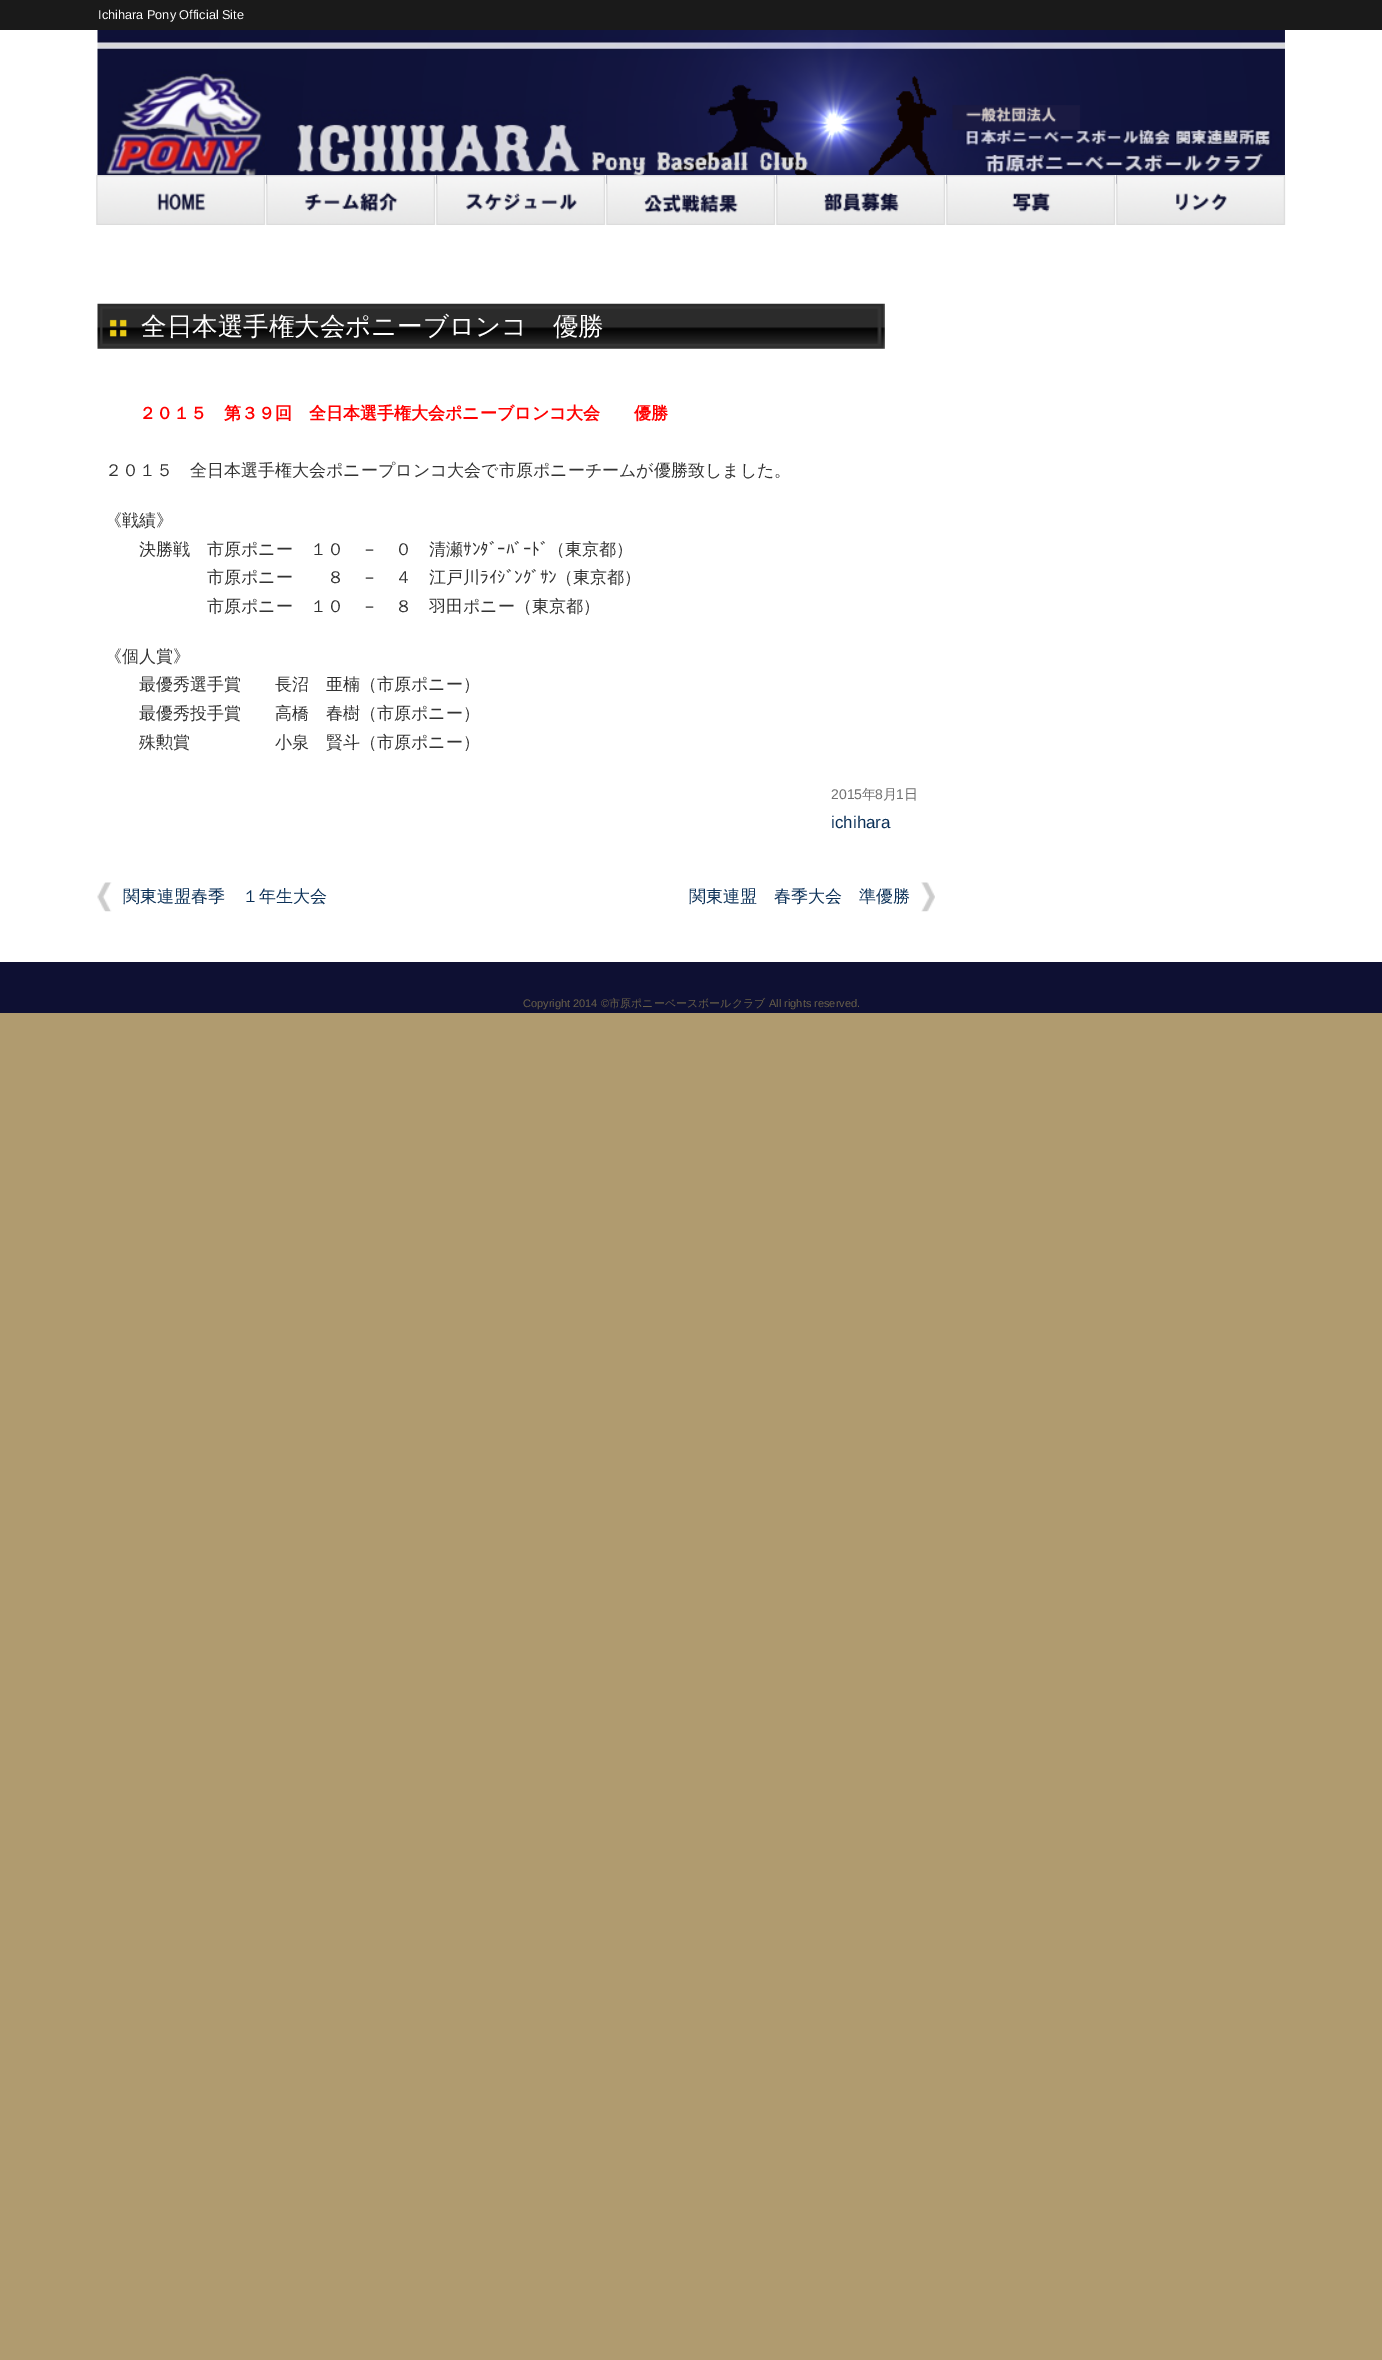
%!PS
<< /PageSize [1382 2360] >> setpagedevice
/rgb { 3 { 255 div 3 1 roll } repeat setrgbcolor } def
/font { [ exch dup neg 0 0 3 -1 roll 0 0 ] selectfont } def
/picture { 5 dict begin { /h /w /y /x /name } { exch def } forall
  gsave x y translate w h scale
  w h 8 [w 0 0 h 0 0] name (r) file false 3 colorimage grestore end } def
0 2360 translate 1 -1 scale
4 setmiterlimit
176 155 111 rgb
0 0 1382 2360 rectfill
255 255 255 rgb
0 30 1382 932 rectfill
26 26 26 rgb
0 0 1382 30 rectfill
(img/1.rgb) 97 30 1188 154 picture
(img/2.rgb) 96 175 171 50 picture
(img/3.rgb) 266 175 171 50 picture
(img/4.rgb) 436 175 171 50 picture
(img/5.rgb) 606 175 171 50 picture
(img/6.rgb) 776 175 171 50 picture
(img/7.rgb) 946 175 171 50 picture
(img/8.rgb) 1116 175 170 50 picture
(img/9.rgb) 97 303 788 46 picture
(img/10.rgb) 97 882 15 30 picture
(img/11.rgb) 921 882 14 30 picture
14 16 51 rgb
0 962 1382 51 rectfill
/LiberationSans-Regular 12.75 font
255 255 255 rgb
98 19 moveto (Ichihara Pony Official Site) show
/WenQuanYiZenHei-Medium 25.5 font
141 335 moveto (全日本選手権大会ポニーブロンコ　優勝) show
/WenQuanYiZenHei-Bold 17 font
255 0 0 rgb
139 419 moveto (２０１５　第３９回　全日本選手権大会ポニーブロンコ大会　　優勝) show
/WenQuanYiZenHei-Medium 17 font
51 51 51 rgb
[
  [(２０１５　全日本選手権大会ポニープロンコ大会で市原ポニーチームが優勝致しました。) 105 476]
  [(《戦績》) 105 526]
  [(決勝戦　市原ポニー　１０　－　０　清瀬) 139 555]
] { aload pop moveto show } forall
/IPAPGothic-Regular 17 font
463 555 moveto (ｻﾝﾀﾞｰﾊﾞｰﾄﾞ) show
/WenQuanYiZenHei-Medium 17 font
548 555 moveto (（東京都）) show
207 583 moveto (市原ポニー　　８　－　４　江戸川) show
/IPAPGothic-Regular 17 font
480 583 moveto (ﾗｲｼﾞﾝｸﾞｻﾝ) show
/WenQuanYiZenHei-Medium 17 font
[
  [(（東京都）) 556 583]
  [(市原ポニー　１０　－　８　羽田ポニー（東京都）) 207 612]
  [(《個人賞》) 105 662]
  [(最優秀選手賞　　長沼　亜楠（市原ポニー）) 139 690]
  [(最優秀投手賞　　高橋　春樹（市原ポニー）) 139 719]
  [(殊勲賞　　　　　小泉　賢斗（市原ポニー）) 139 748]
] { aload pop moveto show } forall
/LiberationSans-Regular 14 font
112 112 112 rgb
831 799 moveto (2015) show
/WenQuanYiZenHei-Medium 14 font
862 799 moveto (年) show
/LiberationSans-Regular 14 font
875 799 moveto (8) show
/WenQuanYiZenHei-Medium 14 font
883 799 moveto (月) show
/LiberationSans-Regular 14 font
896 799 moveto (1) show
/WenQuanYiZenHei-Medium 14 font
904 799 moveto (日) show
/LiberationSans-Regular 17 font
12 49 88 rgb
831 828 moveto (ichihara) show
/WenQuanYiZenHei-Medium 17 font
123 902 moveto (関東連盟春季　１年生大会) show
689 902 moveto (関東連盟　春季大会　準優勝) show
/LiberationSans-Regular 11 font
105 95 73 rgb
523 1007 moveto (Copyright 2014 ©) show
/WenQuanYiZenHei-Medium 11 font
609 1007 moveto (市原ポニーベースボールクラブ) show
/LiberationSans-Regular 11 font
769 1007 moveto (All rights reserved.) show
showpage
